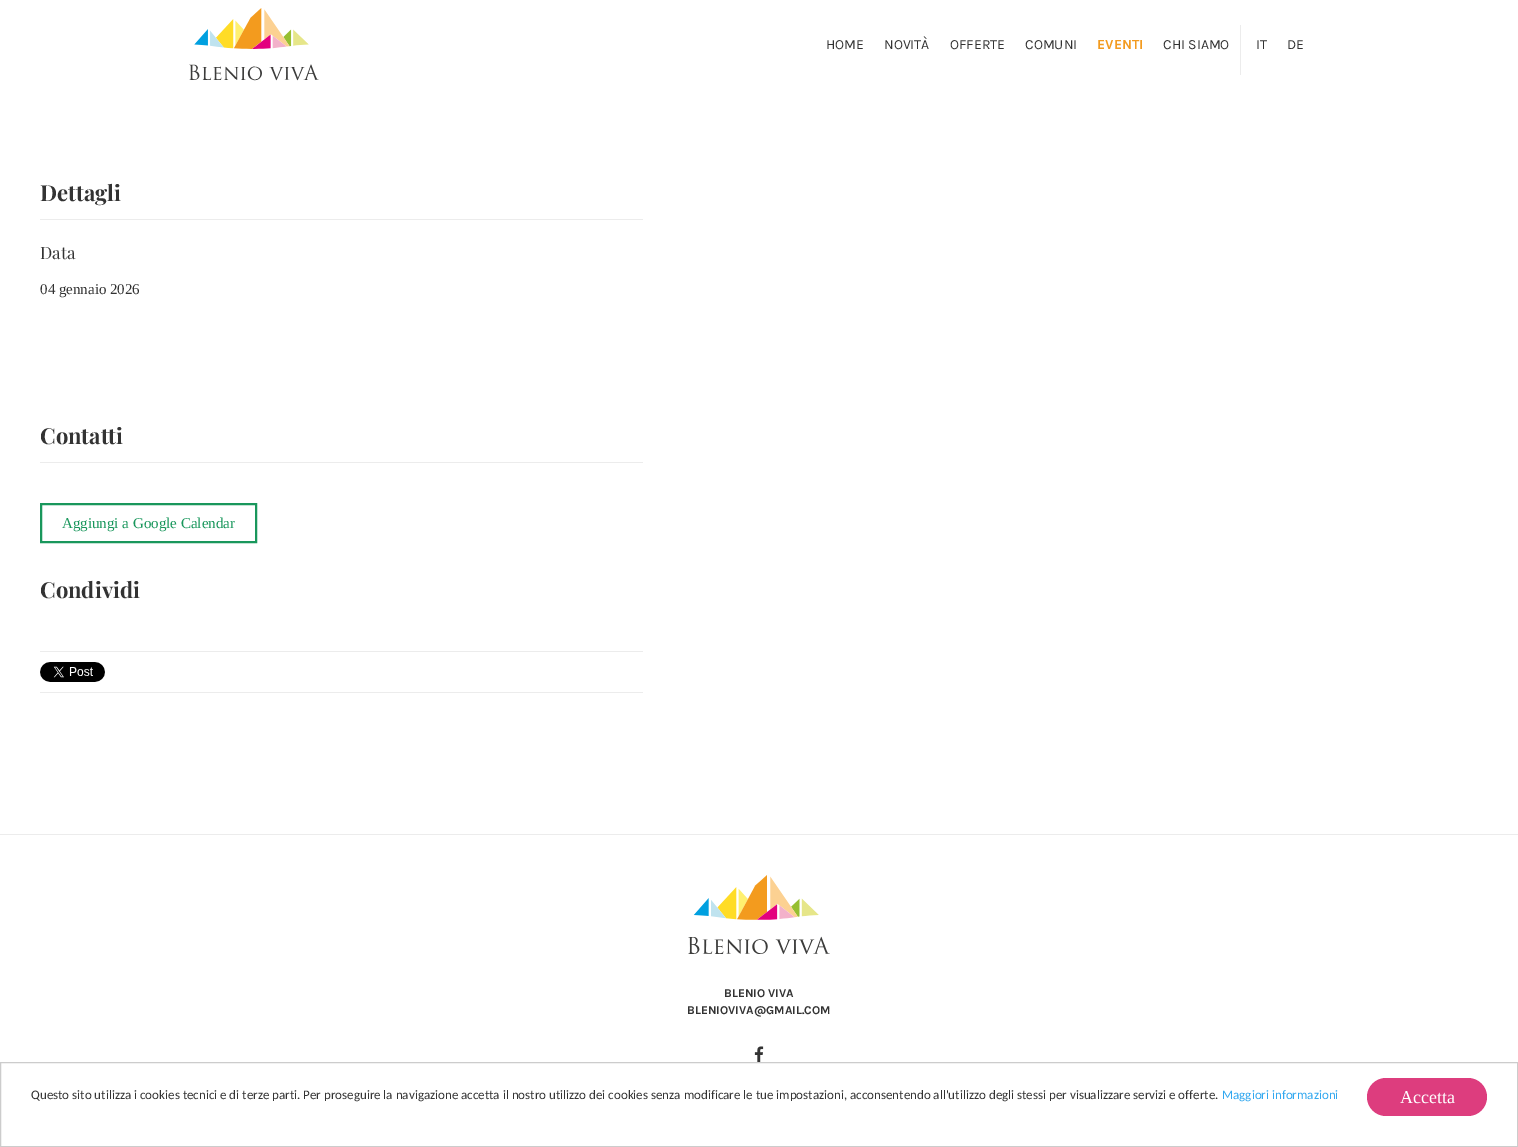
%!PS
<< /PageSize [1518 1147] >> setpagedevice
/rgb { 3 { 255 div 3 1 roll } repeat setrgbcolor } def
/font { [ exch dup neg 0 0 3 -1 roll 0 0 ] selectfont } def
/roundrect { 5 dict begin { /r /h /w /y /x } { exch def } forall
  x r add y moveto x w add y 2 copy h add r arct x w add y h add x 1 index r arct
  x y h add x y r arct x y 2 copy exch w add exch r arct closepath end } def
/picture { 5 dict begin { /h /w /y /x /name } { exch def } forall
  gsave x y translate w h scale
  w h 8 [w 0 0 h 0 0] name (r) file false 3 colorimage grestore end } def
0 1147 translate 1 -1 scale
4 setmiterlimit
255 255 255 rgb
0 0 1518 1147 rectfill
(img/1.rgb) 189 8 130 73 picture
[
  [1240 25 1 50 236 236 236]
  [40 219 603 1 236 236 236]
  [40 462 603 1 236 236 236]
] { aload pop rgb rectfill } forall
25 151 92 rgb
2 setlinewidth
41 504 215 38 rectstroke
236 236 236 rgb
40 651 603 1 rectfill
(img/2.rgb) 40 662 65 20 picture
40 692 603 1 rectfill
0 834 1518 1 rectfill
(img/3.rgb) 688 875 142 80 picture
(img/4.rgb) 754 1046 10 16 picture
204 204 204 rgb
1 setlinewidth
0.5 1062.5 1517 84 rectstroke
221 61 126 rgb
1367 1078 120 38 19 roundrect fill
/Karla-Regular 14 font
51 51 51 rgb
[
  [(HOME) 826 49]
  [(NOVITÀ) 884 49]
  [(OFFERTE) 950 49]
  [(COMUNI) 1025 49]
] { aload pop moveto show } forall
/Karla-Bold 14 font
243 155 31 rgb
1097 49 moveto (EVENTI) show
/Karla-Regular 14 font
51 51 51 rgb
[
  [(CHI SIAMO) 1163 49]
  [(IT) 1256 49]
  [(DE) 1287 49]
] { aload pop moveto show } forall
/PlayfairDisplay-Bold 22 font
40 201 moveto (Dettagli) show
/PlayfairDisplay-Regular 17 font
40 259 moveto (Data) show
/LiberationSerif-Regular 15 font
40 294 moveto (04 gennaio 2026) show
/PlayfairDisplay-Bold 22 font
40 444 moveto (Contatti) show
/LiberationSerif-Regular 15 font
25 151 92 rgb
62 528 moveto (Aggiungi a Google Calendar) show
/PlayfairDisplay-Bold 22 font
51 51 51 rgb
40 598 moveto (Condividi) show
/Karla-Bold 12 font
724 997 moveto (BLENIO VIVA) show
687 1014 moveto (BLENIOVIVA@GMAIL.COM) show
/Carlito-Regular 13 font
31 1099 moveto (Questo sito utilizza i cookies tecnici e di terze parti. Per proseguire la navigazione accetta il nostro utilizzo dei cookies senza modificare le tue impostazioni, acconsentendo all'utilizzo degli stessi per visualizzare servizi e offerte.) show
49 168 240 rgb
1222 1099 moveto (Maggiori informazioni) show
/LiberationSerif-Regular 18 font
255 255 255 rgb
1400 1103 moveto (Accetta) show
showpage
